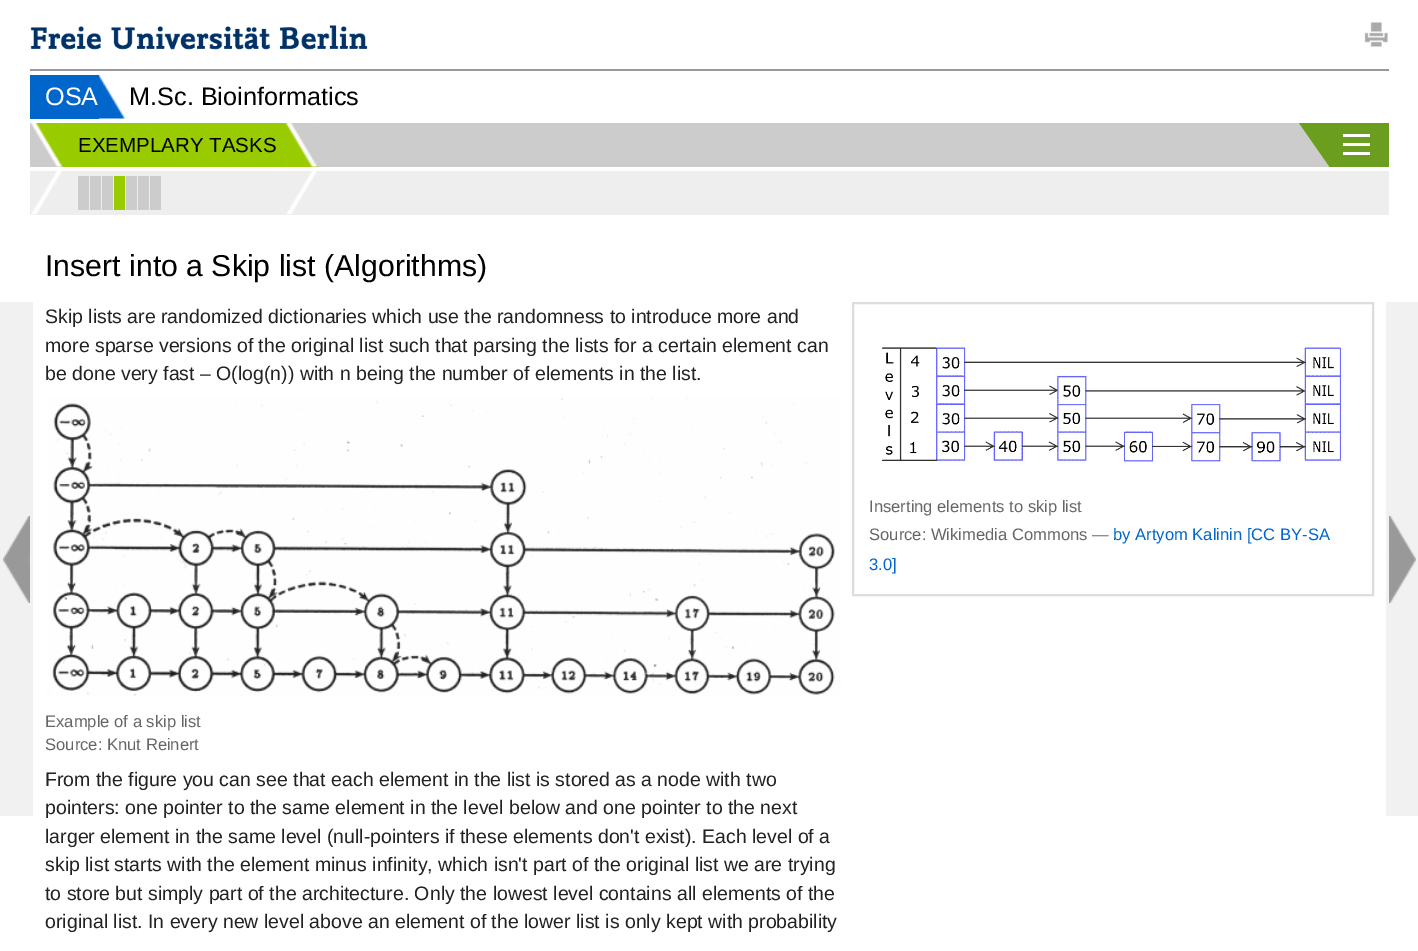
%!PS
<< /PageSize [1418 951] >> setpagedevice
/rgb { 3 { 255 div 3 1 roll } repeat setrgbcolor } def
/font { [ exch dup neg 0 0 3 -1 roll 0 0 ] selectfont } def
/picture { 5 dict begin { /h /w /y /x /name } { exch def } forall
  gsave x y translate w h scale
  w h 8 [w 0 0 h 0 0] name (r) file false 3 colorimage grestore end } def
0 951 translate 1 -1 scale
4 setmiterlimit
255 255 255 rgb
0 0 1418 951 rectfill
(img/1.rgb) 30 25 338 25 picture
(img/2.rgb) 1364 22 24 25 picture
153 153 153 rgb
30 69 1359 2 rectfill
(img/3.rgb) 99 75 26 44 picture
0 102 204 rgb
30 75 69 44 rectfill
204 204 204 rgb
30 123 1299 44 rectfill
(img/4.rgb) 31 123 32 44 picture
238 238 238 rgb
30 171 1359 44 rectfill
(img/5.rgb) 31 171 31 44 picture
153 204 0 rgb
63 123 255 44 rectfill
(img/6.rgb) 285 123 33 44 picture
(img/7.rgb) 286 171 31 44 picture
[
  [78 176 11 34 204 204 204]
  [90 176 11 34 204 204 204]
  [102 176 11 34 204 204 204]
  [114 176 11 34 153 204 0]
  [126 176 11 34 204 204 204]
  [138 176 11 34 204 204 204]
  [150 176 11 34 204 204 204]
  [1329 123 60 44 107 158 30]
] { aload pop rgb rectfill } forall
1329 123 moveto 1329 166 lineto 1299 123 lineto closepath fill
[
  [1343 134 27 3 255 255 255]
  [1343 143 27 3 255 255 255]
  [1343 152 27 3 255 255 255]
  [0 302 33 514 241 241 241]
] { aload pop rgb rectfill } forall
(img/8.rgb) 3 516 27 87 picture
1386 302 32 514 rectfill
(img/9.rgb) 1389 516 27 87 picture
(img/10.rgb) 47 397 794 299 picture
221 221 221 rgb
2 setlinewidth
853 303 520 292 rectstroke
(img/11.rgb) 882 347 459 115 picture
/LiberationSans-Regular 25.25 font
255 255 255 rgb
45 105 moveto (OSA) show
0 0 0 rgb
129 105 moveto (M.Sc. Bioinformatics) show
/LiberationSans-Regular 20.5 font
78 152 moveto (EXEMPLARY TASKS) show
/LiberationSans-Regular 30.25 font
45 276 moveto (Insert into a Skip list \(Algorithms\)) show
/LiberationSans-Regular 19.5 font
34 34 34 rgb
[
  [(Skip lists are randomized dictionaries which use the randomness to introduce more and) 45 323]
  [(more sparse versions of the original list such that parsing the lists for a certain element can) 45 352]
  [(be done very fast – O\(log\(n\)\) with n being the number of elements in the list.) 45 380]
] { aload pop moveto show } forall
/LiberationSans-Regular 16.6 font
102 102 102 rgb
45 727 moveto (Example of a skip list) show
45 750 moveto (Source: Knut Reinert) show
/LiberationSans-Regular 19.5 font
34 34 34 rgb
[
  [(From the figure you can see that each element in the list is stored as a node with two) 45 786]
  [(pointers: one pointer to the same element in the level below and one pointer to the next) 45 814]
  [(larger element in the same level \(null-pointers if these elements don't exist\). Each level of a) 45 843]
  [(skip list starts with the element minus infinity, which isn't part of the original list we are trying) 45 871]
  [(to store but simply part of the architecture. Only the lowest level contains all elements of the) 45 900]
  [(original list. In every new level above an element of the lower list is only kept with probability) 45 928]
] { aload pop moveto show } forall
/LiberationSans-Regular 16.6 font
102 102 102 rgb
869 512 moveto (Inserting elements to skip list) show
869 540 moveto (Source: Wikimedia Commons —) show
0 102 204 rgb
1113 540 moveto (by Artyom Kalinin [CC BY-SA) show
869 570 moveto (3.0]) show
showpage
